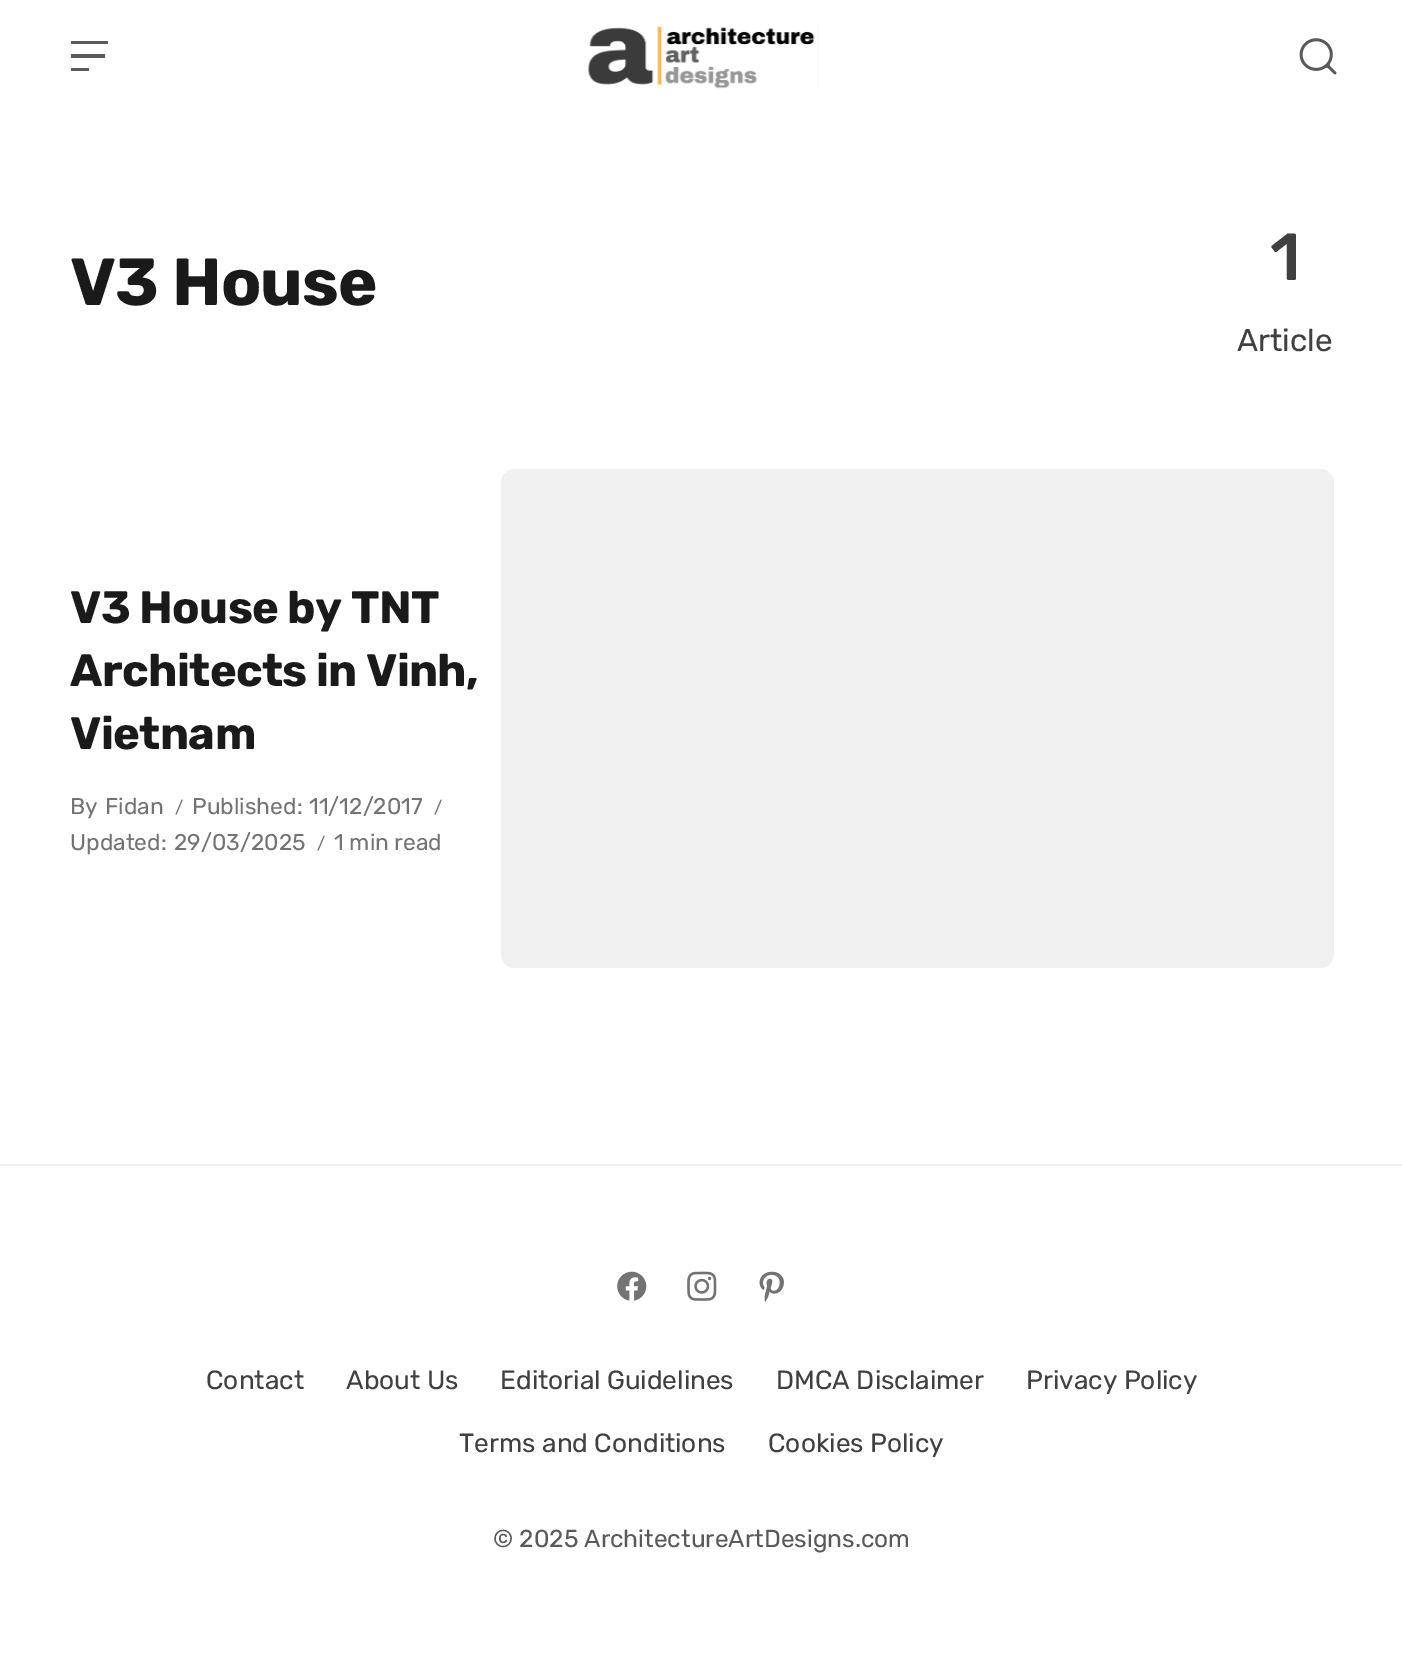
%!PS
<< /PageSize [1402 1662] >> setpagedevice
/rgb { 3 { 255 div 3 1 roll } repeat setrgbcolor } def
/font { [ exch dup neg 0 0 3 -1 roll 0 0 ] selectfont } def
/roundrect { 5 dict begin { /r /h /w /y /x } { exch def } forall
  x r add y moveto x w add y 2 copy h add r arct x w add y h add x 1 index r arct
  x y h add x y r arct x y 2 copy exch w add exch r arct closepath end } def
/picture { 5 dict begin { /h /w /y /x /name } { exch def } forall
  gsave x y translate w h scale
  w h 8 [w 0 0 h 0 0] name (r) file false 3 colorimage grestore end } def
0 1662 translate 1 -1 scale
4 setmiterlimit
255 255 255 rgb
0 0 1402 1662 rectfill
89 89 89 rgb
71 41 37 3 1 roundrect fill
71 54 34 4 1 roundrect fill
71 68 18 3 1 roundrect fill
(img/1.rgb) 587 21 232 70 picture
(img/2.rgb) 1299 38 38 37 picture
240 240 240 rgb
501 469 833 499 14 roundrect fill
0 1164 1402 2 rectfill
(img/3.rgb) 617 1271 30 30 picture
(img/4.rgb) 687 1271 30 30 picture
(img/5.rgb) 759 1271 25 31 picture
/Rubik-Bold 66.5 font
26 26 26 rgb
70 305 moveto -0.75 0 (V3 House) ashow
/Rubik-Medium 66.5 font
64 64 64 rgb
1270 280 moveto (1) show
/Rubik-Regular 31.5 font
1237 351 moveto (Article) show
/Rubik-Bold 45.25 font
26 26 26 rgb
70 623 moveto -0.6 0 (V3 House by TNT) ashow
70 686 moveto -0.6 0 (Architects in Vinh,) ashow
70 749 moveto -0.6 0 (Vietnam) ashow
/Rubik-Regular 22.75 font
115 115 115 rgb
70 814 moveto (By) show
105 814 moveto (Fidan) show
/Rubik-Regular 17 font
175 813 moveto (/) show
/Rubik-Regular 22.75 font
192 814 moveto (Published:) show
309 814 moveto (11/12/2017) show
/Rubik-Regular 17 font
434 813 moveto (/) show
/Rubik-Regular 22.75 font
70 850 moveto (Updated:) show
174 850 moveto (29/03/2025) show
/Rubik-Regular 17 font
317 849 moveto (/) show
/Rubik-Regular 22.75 font
334 850 moveto (1 min read) show
/Rubik-Regular 26.25 font
64 64 64 rgb
[
  [(Contact) 206 1389]
  [(About Us) 346 1389]
  [(Editorial Guidelines) 500 1389]
  [(DMCA Disclaimer) 776 1389]
  [(Privacy Policy) 1026 1389]
  [(Terms and Conditions) 459 1452]
  [(Cookies Policy) 768 1452]
] { aload pop moveto show } forall
/Rubik-Regular 24.5 font
89 89 89 rgb
493 1547 moveto (© 2025 ArchitectureArtDesigns.com) show
showpage
